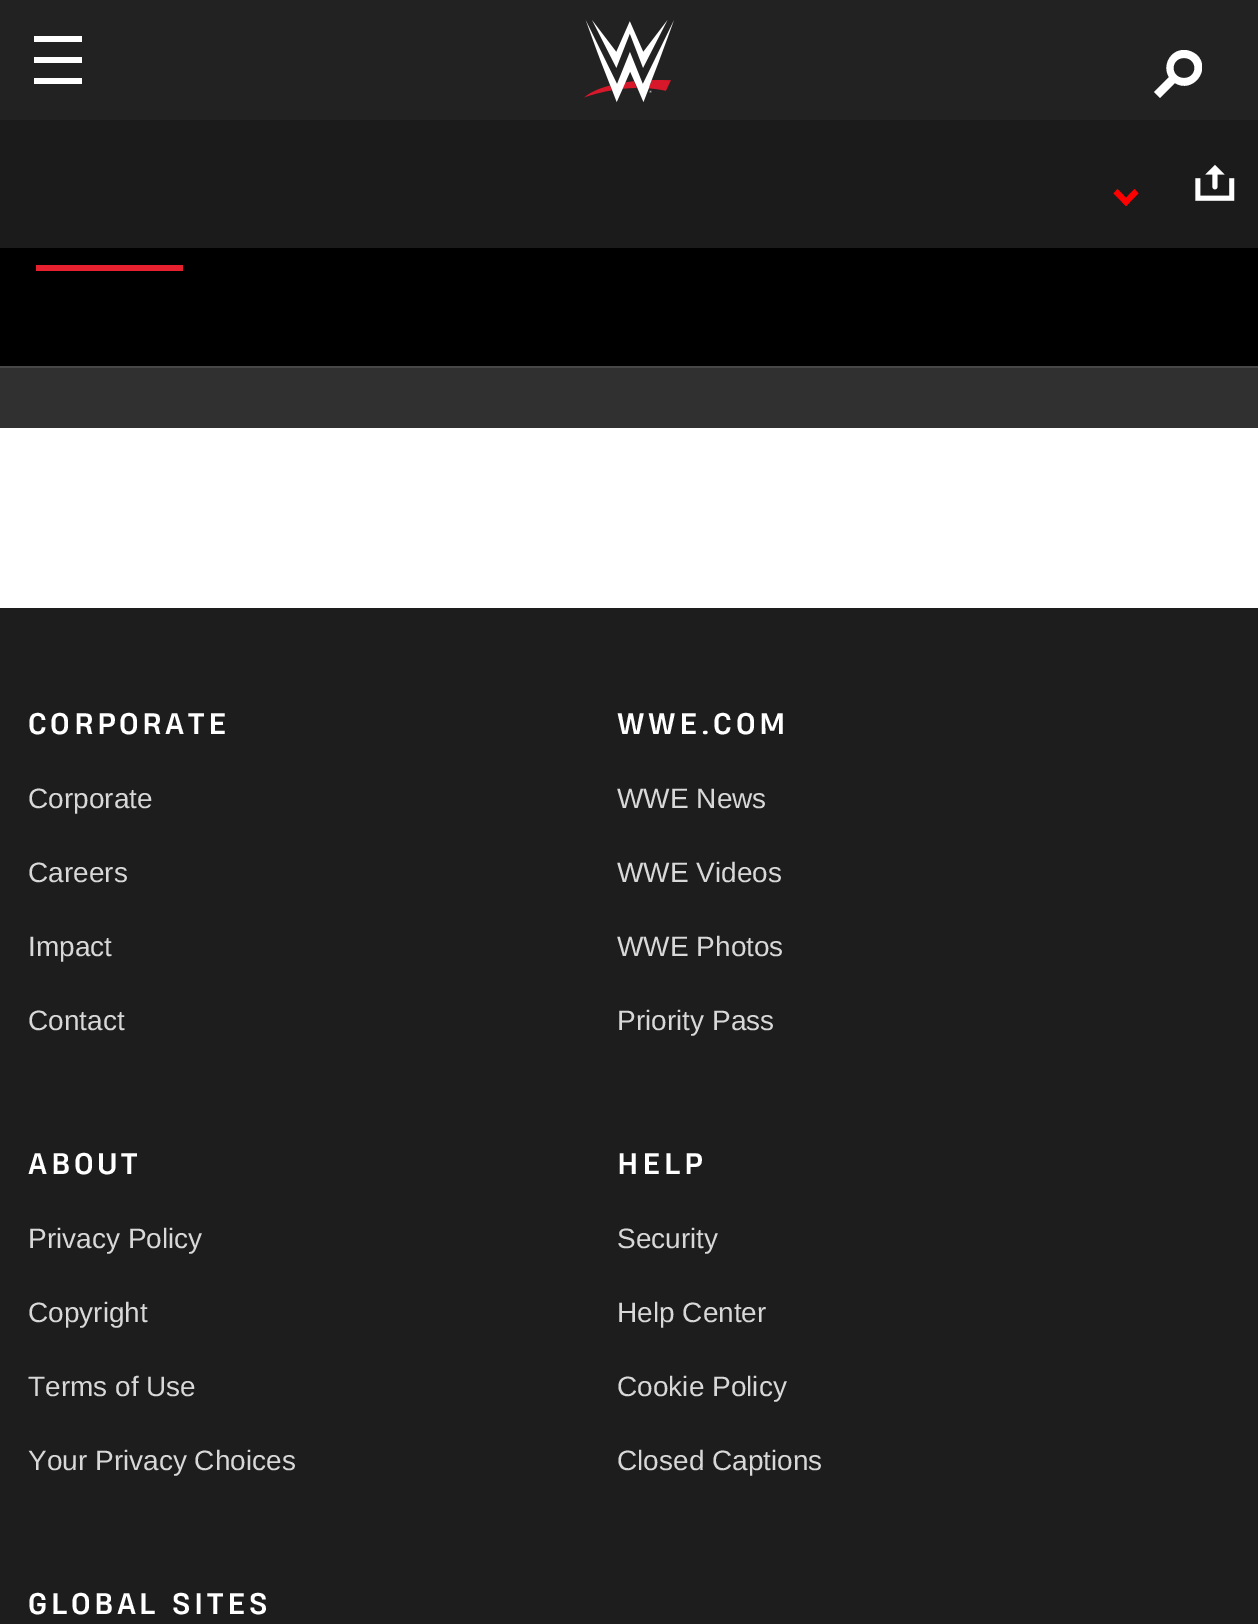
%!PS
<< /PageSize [1258 1624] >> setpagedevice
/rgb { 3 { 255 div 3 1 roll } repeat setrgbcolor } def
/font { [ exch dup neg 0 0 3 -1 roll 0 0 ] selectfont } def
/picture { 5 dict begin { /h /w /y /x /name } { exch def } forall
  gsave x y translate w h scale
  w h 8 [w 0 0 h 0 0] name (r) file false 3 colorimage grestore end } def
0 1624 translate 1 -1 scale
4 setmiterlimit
255 255 255 rgb
0 0 1258 1624 rectfill
34 34 34 rgb
0 0 1258 120 rectfill
255 255 255 rgb
36 42 moveto 34 42 lineto 34 36 lineto 82 36 lineto 82 42 lineto closepath 36 63 moveto 34 63 lineto 34 57 lineto 82 57 lineto 82 63 lineto closepath 36 84 moveto 34 84 lineto 34 78 lineto 82 78 lineto 82 84 lineto closepath eofill
(img/1.rgb) 584 20 90 82 picture
gsave
1154 50 48 48 rectclip
1184 50 moveto 1189 50 1193 52 1197 55 curveto 1212 70 1192 94 1175 83 curveto 1160 98 lineto 1154 92 lineto 1169 77 lineto 1162 66 1170 50 1184 50 curveto closepath 1184 58 moveto 1170 58 1170 78 1184 78 curveto 1198 78 1198 58 1184 58 curveto closepath eofill
grestore
48 48 48 rgb
0 368 1258 60 rectfill
27 27 27 rgb
0 120 1258 128 rectfill
255 0 0 rgb
1134.5 189 moveto 1138.5 193.5 lineto 1126 206 lineto 1122 202 lineto closepath fill
1117.5 189 moveto 1130 202 lineto 1126 206 lineto 1113.5 193.5 lineto closepath fill
(img/2.rgb) 1195 164 40 37 picture
[
  [0 248 1258 118 0 0 0]
  [0 366 1258 2 71 71 71]
  [36 265 147 6 231 32 47]
  [0 608 1258 1016 29 29 29]
] { aload pop rgb rectfill } forall
/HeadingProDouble-Bold 28 font
255 255 255 rgb
28 734 moveto 3.5 0 (CORPORATE) ashow
/LiberationSans-Regular 28 font
216 216 216 rgb
[
  [(Corporate) 28 808]
  [(Careers) 28 882]
  [(Impact) 28 956]
  [(Contact) 28 1030]
] { aload pop moveto show } forall
/HeadingProDouble-Bold 28 font
255 255 255 rgb
617 734 moveto 3.5 0 (WWE.COM) ashow
/LiberationSans-Regular 28 font
216 216 216 rgb
[
  [(WWE News) 617 808]
  [(WWE Videos) 617 882]
  [(WWE Photos) 617 956]
  [(Priority Pass) 617 1030]
] { aload pop moveto show } forall
/HeadingProDouble-Bold 28 font
255 255 255 rgb
28 1174 moveto 3.5 0 (ABOUT) ashow
/LiberationSans-Regular 28 font
216 216 216 rgb
[
  [(Privacy Policy) 28 1248]
  [(Copyright) 28 1322]
  [(Terms of Use) 28 1396]
  [(Your Privacy Choices) 28 1470]
] { aload pop moveto show } forall
/HeadingProDouble-Bold 28 font
255 255 255 rgb
617 1174 moveto 3.5 0 (HELP) ashow
/LiberationSans-Regular 28 font
216 216 216 rgb
[
  [(Security) 617 1248]
  [(Help Center) 617 1322]
  [(Cookie Policy) 617 1396]
  [(Closed Captions) 617 1470]
] { aload pop moveto show } forall
/HeadingProDouble-Bold 28 font
255 255 255 rgb
28 1614 moveto 3.5 0 (GLOBAL SITES) ashow
showpage
